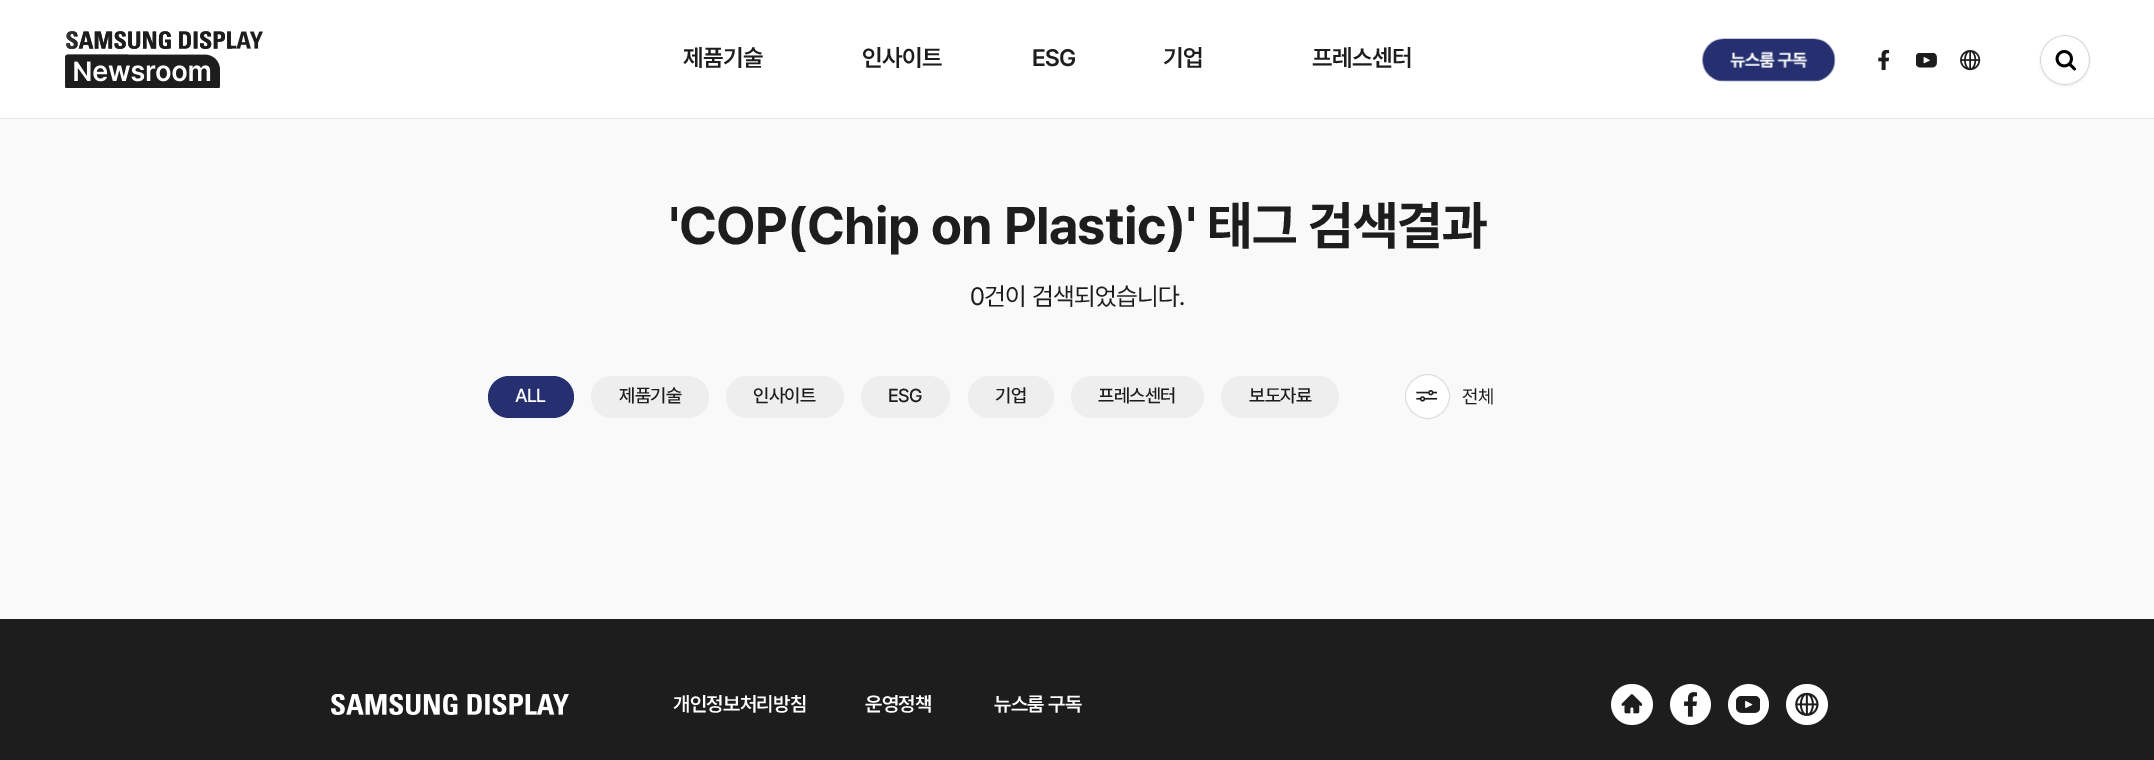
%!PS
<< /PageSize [2154 760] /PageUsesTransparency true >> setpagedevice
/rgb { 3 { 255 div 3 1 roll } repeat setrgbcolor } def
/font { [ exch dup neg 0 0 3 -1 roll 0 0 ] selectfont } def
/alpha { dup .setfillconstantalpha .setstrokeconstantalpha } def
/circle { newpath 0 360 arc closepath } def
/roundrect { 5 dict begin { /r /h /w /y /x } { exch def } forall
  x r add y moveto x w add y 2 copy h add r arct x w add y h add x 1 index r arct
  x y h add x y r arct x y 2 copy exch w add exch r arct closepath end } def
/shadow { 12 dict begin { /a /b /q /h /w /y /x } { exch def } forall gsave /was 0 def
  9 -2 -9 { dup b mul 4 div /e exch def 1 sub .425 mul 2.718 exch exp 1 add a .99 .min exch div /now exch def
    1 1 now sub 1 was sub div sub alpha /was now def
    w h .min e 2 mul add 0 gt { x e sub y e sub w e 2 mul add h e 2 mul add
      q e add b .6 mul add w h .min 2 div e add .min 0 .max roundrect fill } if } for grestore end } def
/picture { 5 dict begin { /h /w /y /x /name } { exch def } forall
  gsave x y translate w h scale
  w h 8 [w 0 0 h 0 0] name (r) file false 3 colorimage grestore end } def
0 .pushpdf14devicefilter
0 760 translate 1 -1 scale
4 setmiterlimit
249 249 249 rgb
0 0 2154 760 rectfill
255 255 255 rgb
0 0 2154 118 rectfill
228 228 228 rgb
0 118 2154 1 rectfill
(img/1.rgb) 65 31 198 57 picture
(img/2.rgb) 1702 38 134 44 picture
(img/3.rgb) 1878 50 11 20 picture
(img/4.rgb) 1916 53 21 15 picture
(img/5.rgb) 1960 50 21 21 picture
0 0 0 rgb
2040 36 50 50 25 1 0.09 shadow
(img/6.rgb) 2040 35 50 50 picture
38 48 112 rgb
488 376 86 42 21 roundrect fill
238 238 238 rgb
591 376 118 42 21 roundrect fill
726 376 118 42 21 roundrect fill
861 376 89 42 21 roundrect fill
968 376 86 42 21 roundrect fill
1071 376 133 42 21 roundrect fill
1221 376 118 42 21 roundrect fill
255 255 255 rgb
1427.5 396.5 22.5 circle fill
(img/7.rgb) 1416 390 22 12 picture
222 222 222 rgb
1427.5 396.5 22 circle stroke
29 29 29 rgb
0 619 2154 141 rectfill
(img/8.rgb) 331 694 238 21 picture
(img/9.rgb) 1611 684 42 41 picture
(img/10.rgb) 1670 684 41 41 picture
(img/11.rgb) 1728 684 41 41 picture
(img/12.rgb) 1786 684 42 41 picture
/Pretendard-SemiBold 23.75 font
683 66 moveto -0.6 0 (제품기술) ashow
862 66 moveto -0.6 0 (인사이트) ashow
1032 66 moveto -0.6 0 (ESG) ashow
1163 66 moveto -0.6 0 (기업) ashow
1312 66 moveto -0.6 0 (프레스센터) ashow
/Pretendard-Bold 52.5 font
669 244 moveto -0.6 0 ('COP\(Chip on Plastic\)' 태그 검색결과) ashow
/Pretendard-Regular 25 font
970 305 moveto -0.6 0 (0건이 검색되었습니다.) ashow
/Pretendard-Medium 18.75 font
255 255 255 rgb
515 402 moveto -0.6 0 (ALL) ashow
29 29 29 rgb
619 402 moveto -0.6 0 (제품기술) ashow
753 402 moveto -0.6 0 (인사이트) ashow
888 402 moveto -0.6 0 (ESG) ashow
995 402 moveto -0.6 0 (기업) ashow
1098 402 moveto -0.6 0 (프레스센터) ashow
1249 402 moveto -0.6 0 (보도자료) ashow
/Pretendard-Regular 18.75 font
1462 403 moveto -0.6 0 (전체) ashow
/Pretendard-SemiBold 20 font
255 255 255 rgb
673 711 moveto -0.6 0 (개인정보처리방침) ashow
865 711 moveto -0.6 0 (운영정책) ashow
994 711 moveto -0.6 0 (뉴스룸 구독) ashow
.poppdf14devicefilter showpage
